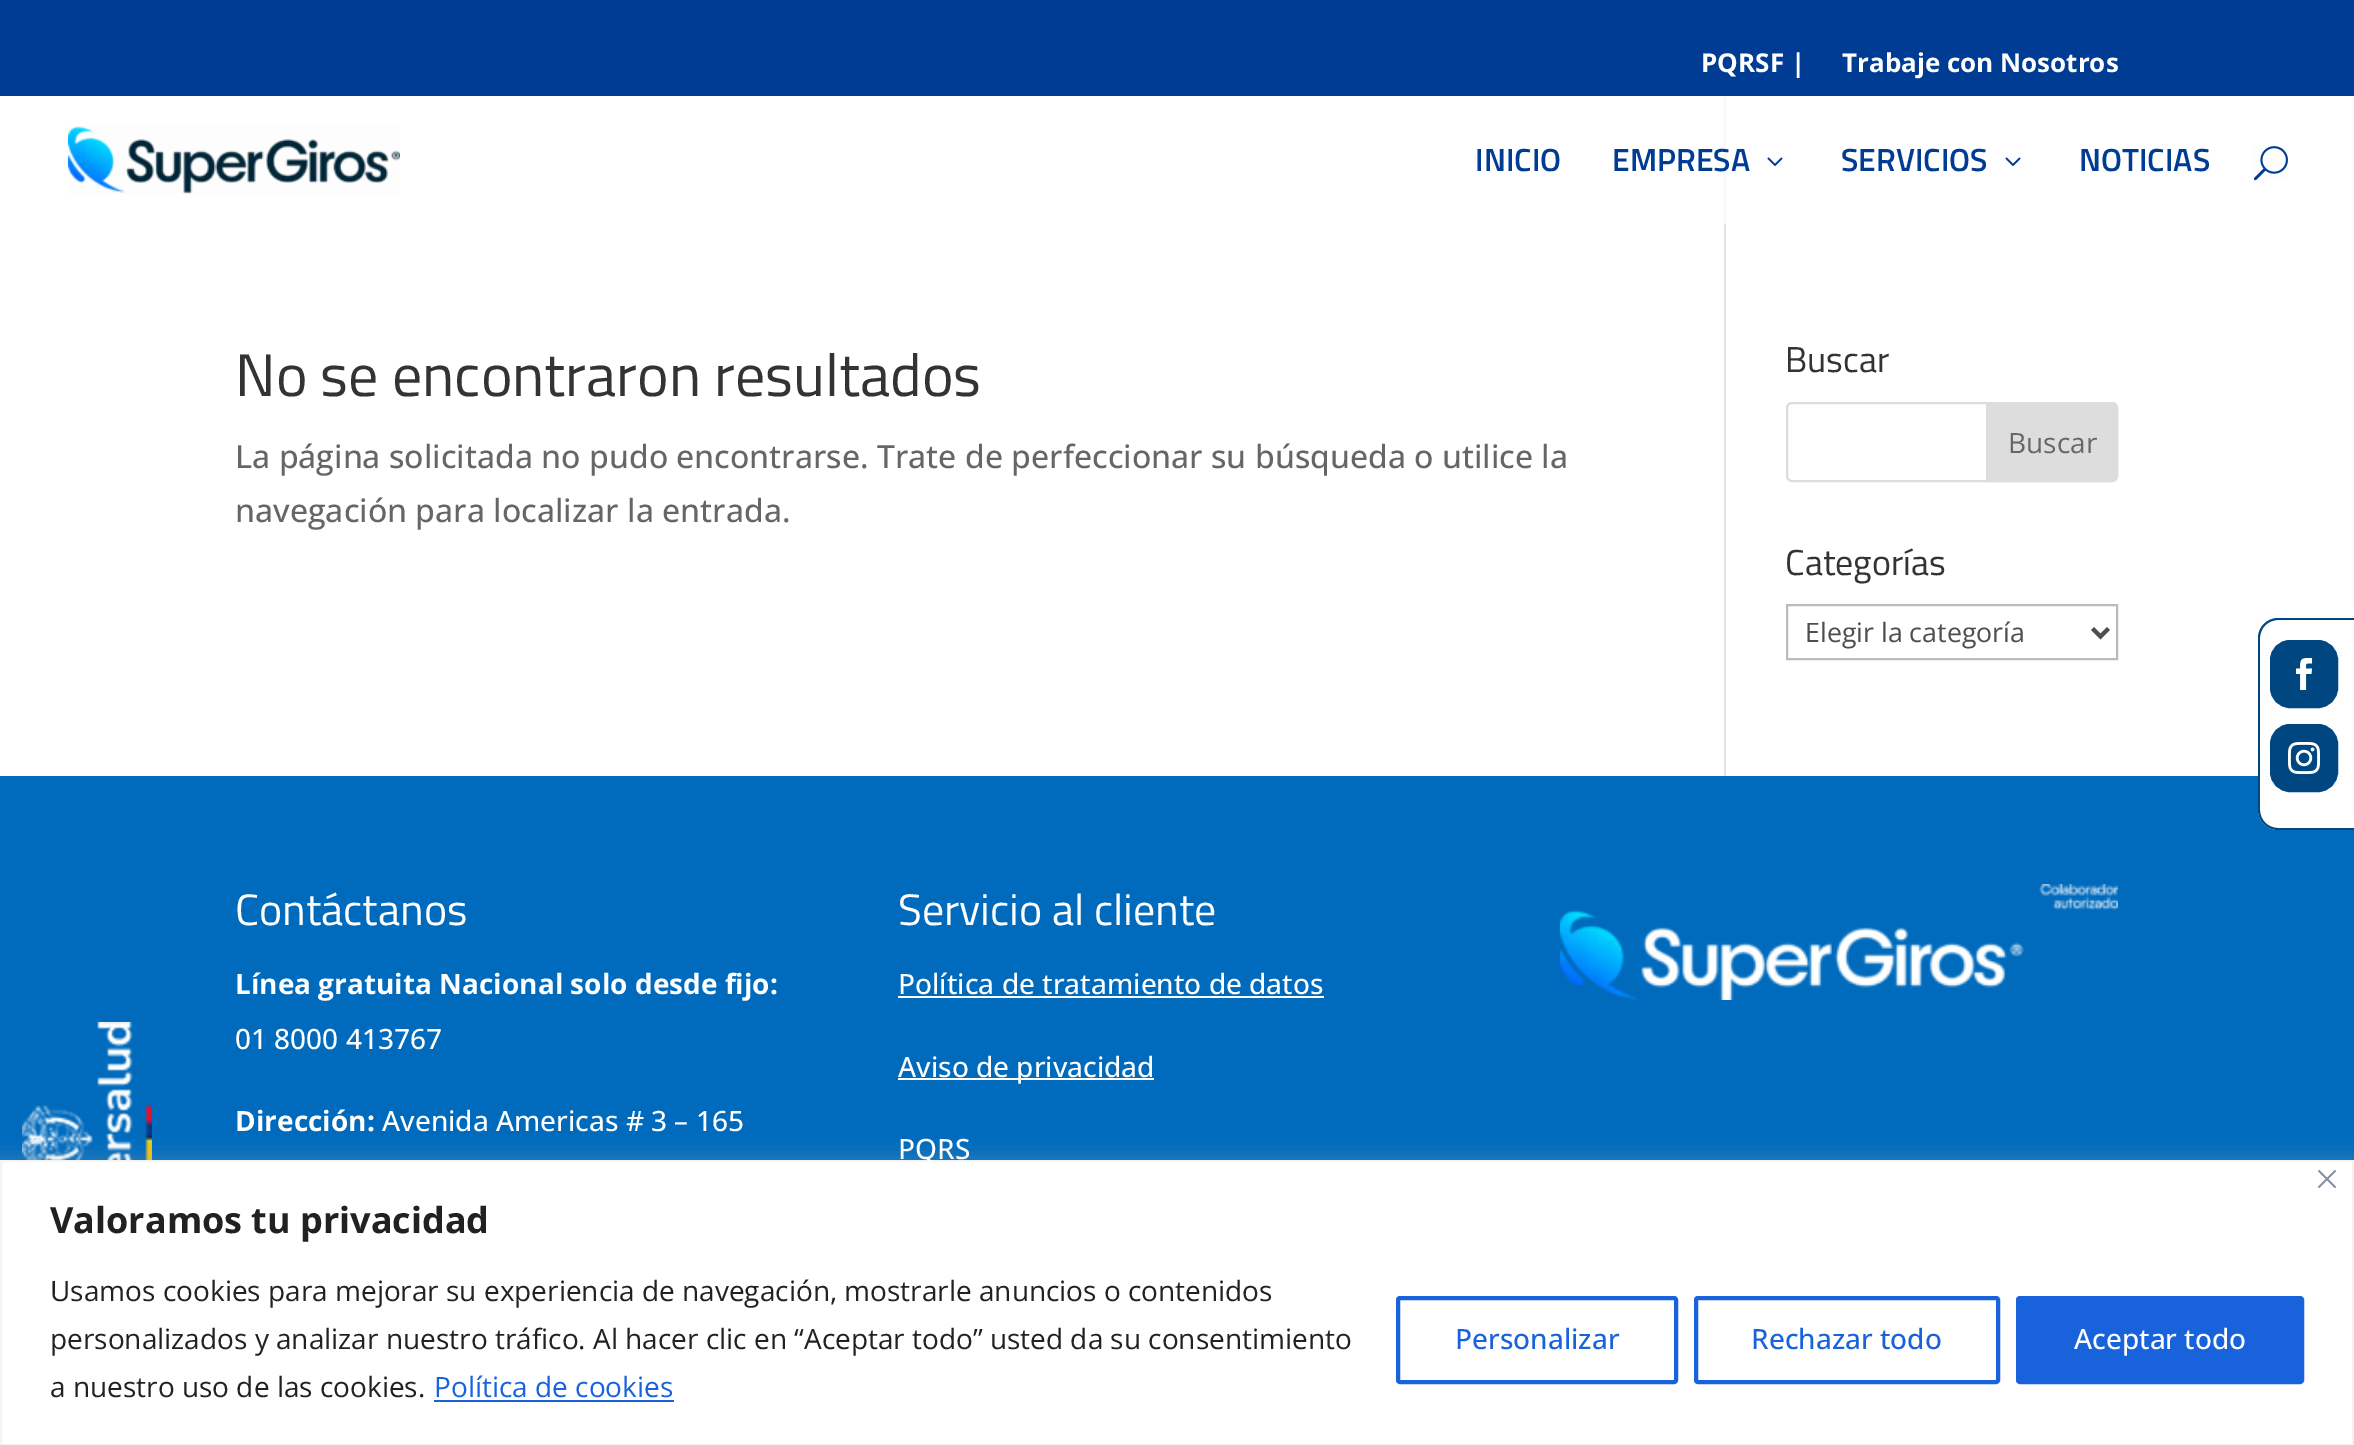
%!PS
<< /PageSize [2354 1445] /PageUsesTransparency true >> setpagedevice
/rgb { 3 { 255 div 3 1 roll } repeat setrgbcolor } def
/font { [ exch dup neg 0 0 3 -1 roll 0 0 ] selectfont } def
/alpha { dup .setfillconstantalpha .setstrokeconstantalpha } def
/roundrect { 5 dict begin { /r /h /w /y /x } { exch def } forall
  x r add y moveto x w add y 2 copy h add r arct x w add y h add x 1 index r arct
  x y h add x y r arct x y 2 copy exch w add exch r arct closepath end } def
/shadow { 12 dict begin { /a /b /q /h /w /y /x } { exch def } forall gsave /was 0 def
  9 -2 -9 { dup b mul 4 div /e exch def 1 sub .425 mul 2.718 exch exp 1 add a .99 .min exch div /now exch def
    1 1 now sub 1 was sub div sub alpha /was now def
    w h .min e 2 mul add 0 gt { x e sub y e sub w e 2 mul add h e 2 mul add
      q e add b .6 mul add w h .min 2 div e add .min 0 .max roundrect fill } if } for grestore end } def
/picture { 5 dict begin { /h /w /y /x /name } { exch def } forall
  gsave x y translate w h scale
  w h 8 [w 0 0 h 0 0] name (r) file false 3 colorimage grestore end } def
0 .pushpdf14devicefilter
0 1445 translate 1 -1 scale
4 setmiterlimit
255 255 255 rgb
0 0 2354 1445 rectfill
0 60 147 rgb
0 0 2354 96 rectfill
(img/1.rgb) 68 126 332 68 picture
(img/2.rgb) 1767 157 16 9 picture
(img/2.rgb) 2005 157 16 9 picture
(img/3.rgb) 2253 146 35 35 picture
226 226 226 rgb
1724 224 2 552 rectfill
247 247 247 rgb
1724 96 2 128 rectfill
221 221 221 rgb
2 setlinewidth
1787 403 330 78 5 roundrect stroke
1987 403 moveto 2112 403 lineto 2115 403 2117 405 2117 408 curveto 2117 476 lineto 2117 479 2115 481 2112 481 curveto 1987 481 lineto closepath gsave fill grestore
stroke
187 187 187 rgb
1787 605 330 54 rectstroke
78 78 78 rgb
4 setlinewidth
2092.5 628.5 moveto 2100.5 636.5 lineto 2108.5 628.5 lineto stroke
0 107 189 rgb
0 776 2354 384 rectfill
(img/4.rgb) 22 1022 130 138 picture
255 255 255 rgb
2278 618 moveto 2354 618 lineto 2354 830 lineto 2278 830 lineto 2267 830 2258 821 2258 810 curveto 2258 638 lineto 2258 627 2267 618 2278 618 curveto closepath fill
0 71 129 rgb
2278 618 moveto 2354 618 lineto 2354 830 lineto 2278 830 lineto 2267 830 2258 821 2258 810 curveto 2258 638 lineto 2258 627 2267 618 2278 618 curveto closepath 2278 620 moveto 2354 620 lineto 2354 828 lineto 2278 828 lineto 2268 828 2260 820 2260 810 curveto 2260 638 lineto 2260 628 2268 620 2278 620 curveto closepath eofill
2271 641 66 66 19 roundrect gsave fill grestore
2 setlinewidth
stroke
(img/5.rgb) 2296 658 17 32 picture
2271 725 66 66 19 roundrect gsave fill grestore
stroke
(img/6.rgb) 2288 742 32 32 picture
255 255 255 rgb
898 996 426 2 rectfill
898 1078 256 2 rectfill
(img/7.rgb) 1560 884 558 116 picture
172 171 171 rgb
0 1158 2354 286 0 10 0.3 shadow
255 255 255 rgb
1 1161 moveto 2353 1161 lineto 2353 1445 lineto 1 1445 lineto closepath gsave fill grestore
244 244 244 rgb
stroke
(img/8.rgb) 2318 1170 18 18 picture
24 99 220 rgb
434 1400 240 2 rectfill
4 setlinewidth
1398 1298 278 84 2 roundrect stroke
1696 1298 302 84 2 roundrect stroke
2018 1298 284 84 2 roundrect gsave fill grestore
stroke
/OpenSans-Bold 26 font
255 255 255 rgb
1701 72 moveto (PQRSF |) show
1842 72 moveto (Trabaje con Nosotros) show
/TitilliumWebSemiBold-SemiBold 32 font
0 60 148 rgb
[
  [(INICIO) 1475 171]
  [(EMPRESA) 1612 171]
  [(SERVICIOS) 1841 171]
  [(NOTICIAS) 2079 171]
] { aload pop moveto show } forall
/TitilliumWeb-Regular 60 font
51 51 51 rgb
235 396 moveto (No se encontraron resultados) show
/OpenSans-Medium 32 font
102 102 102 rgb
235 468 moveto (La página solicitada no pudo encontrarse. Trate de perfeccionar su búsqueda o utilice la) show
235 522 moveto (navegación para localizar la entrada.) show
/TitilliumWeb-Regular 36 font
51 51 51 rgb
1785 372 moveto (Buscar) show
/OpenSans-Regular 28 font
102 102 102 rgb
2008 453 moveto (Buscar) show
/TitilliumWeb-Regular 36 font
51 51 51 rgb
1785 575 moveto (Categorías) show
/OpenSans-Regular 26.75 font
78 78 78 rgb
1805 642 moveto (Elegir la categoría) show
/TitilliumWeb-Regular 44 font
255 255 255 rgb
235 925 moveto (Contáctanos) show
/OpenSans-Bold 28 font
235 994 moveto (Línea gratuita Nacional solo desde fijo:) show
/OpenSans-Medium 28 font
235 1049 moveto (01 8000 413767) show
/OpenSans-Bold 28 font
235 1131 moveto (Dirección:) show
/OpenSans-Medium 28 font
382 1131 moveto (Avenida Americas # 3 – 165) show
/TitilliumWeb-Regular 44 font
898 925 moveto (Servicio al cliente) show
/OpenSans-Medium 28 font
[
  [(Política de tratamiento de datos) 898 994]
  [(Aviso de privacidad) 898 1077]
  [(PQRS) 898 1159]
] { aload pop moveto show } forall
/OpenSans-Bold 36 font
33 33 33 rgb
50 1233 moveto (Valoramos tu privacidad) show
/OpenSans-Regular 28 font
[
  [(Usamos cookies para mejorar su experiencia de navegación, mostrarle anuncios o contenidos) 50 1301]
  [(personalizados y analizar nuestro tráfico. Al hacer clic en “Aceptar todo” usted da su consentimiento) 50 1349]
  [(a nuestro uso de las cookies.) 50 1397]
] { aload pop moveto show } forall
24 99 220 rgb
434 1397 moveto (Política de cookies) show
/OpenSans-Medium 28 font
1455 1349 moveto (Personalizar) show
1751 1349 moveto (Rechazar todo) show
255 255 255 rgb
2074 1349 moveto (Aceptar todo) show
.poppdf14devicefilter showpage
